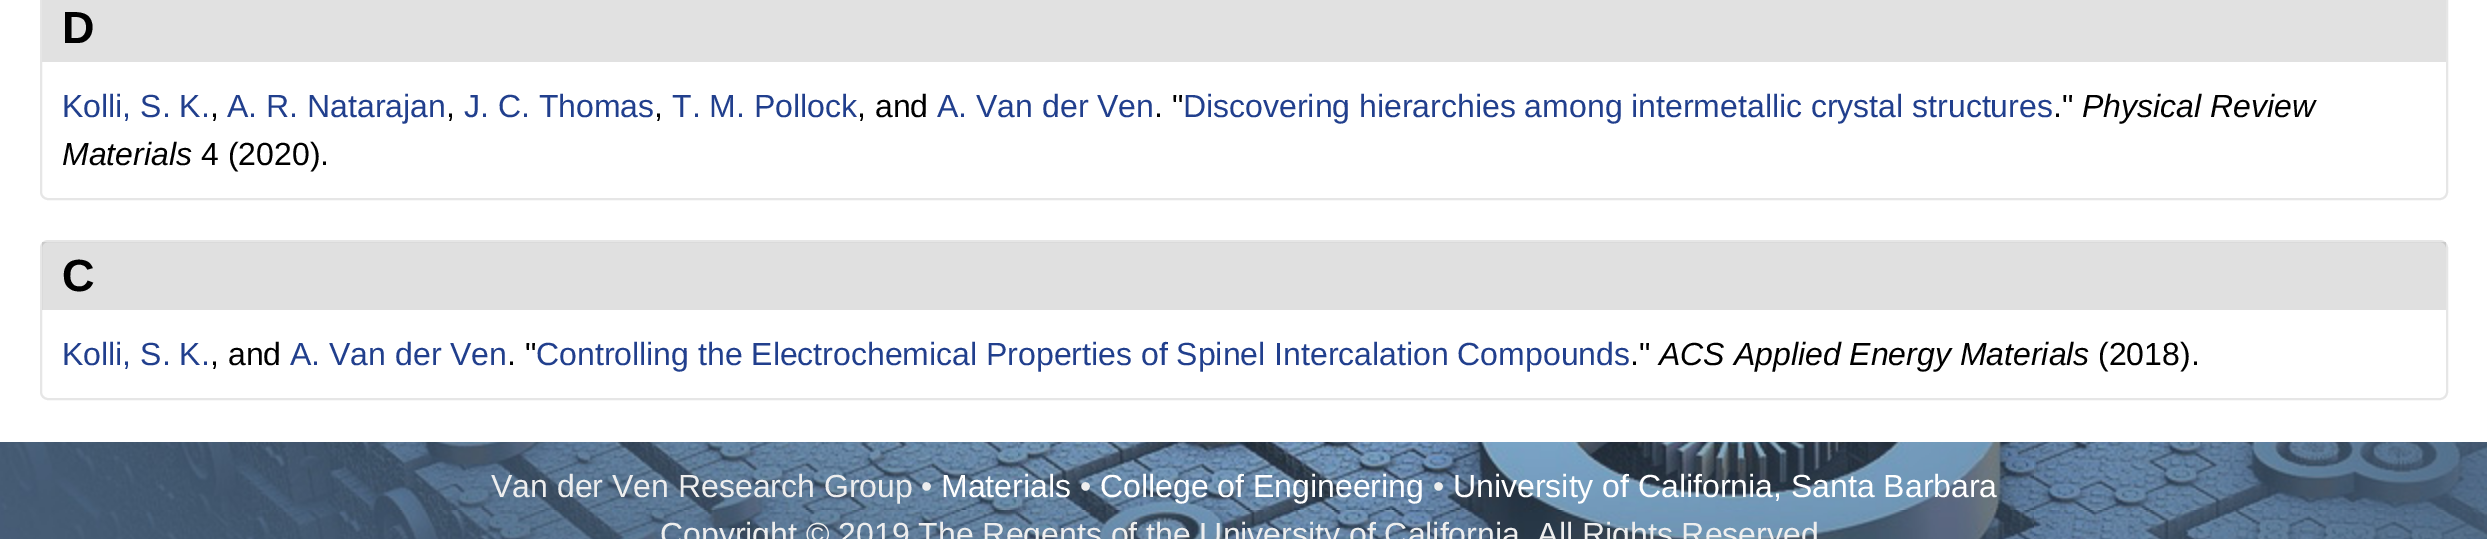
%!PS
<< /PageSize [2487 539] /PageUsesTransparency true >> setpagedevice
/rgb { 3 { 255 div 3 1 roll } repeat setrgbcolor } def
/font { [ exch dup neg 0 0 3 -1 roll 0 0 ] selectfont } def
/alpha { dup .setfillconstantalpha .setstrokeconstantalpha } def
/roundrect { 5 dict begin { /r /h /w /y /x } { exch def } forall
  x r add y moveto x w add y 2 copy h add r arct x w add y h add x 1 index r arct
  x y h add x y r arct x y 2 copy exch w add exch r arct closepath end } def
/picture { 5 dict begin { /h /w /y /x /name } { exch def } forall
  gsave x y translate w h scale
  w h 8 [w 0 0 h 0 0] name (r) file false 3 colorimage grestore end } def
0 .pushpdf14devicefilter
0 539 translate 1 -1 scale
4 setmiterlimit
255 255 255 rgb
0 0 2487 539 rectfill
(img/1.rgb) 0 442 2487 97 picture
230 230 230 rgb
2 setlinewidth
41 -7 2406 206 7 roundrect stroke
225 225 225 rgb
42 0 2404 62 rectfill
230 230 230 rgb
41 241 2406 158 7 roundrect stroke
0.12 alpha
0 0 0 rgb
42 242 2404 68 rectfill
/LiberationSans-Bold 45 font
1 alpha
62 43 moveto (D) show
/LiberationSans-Regular 32 font
33 63 141 rgb
62 117 moveto (Kolli, S. K.) show
0 0 0 rgb
210 117 moveto (,) show
33 63 141 rgb
227 117 moveto (A. R. Natarajan) show
0 0 0 rgb
446 117 moveto (,) show
33 63 141 rgb
464 117 moveto (J. C. Thomas) show
0 0 0 rgb
654 117 moveto (,) show
33 63 141 rgb
672 117 moveto (T. M. Pollock) show
0 0 0 rgb
857 117 moveto (, and) show
33 63 141 rgb
937 117 moveto (A. Van der Ven) show
0 0 0 rgb
1154 117 moveto (. ") show
33 63 141 rgb
1183 117 moveto (Discovering hierarchies among intermetallic crystal structures) show
0 0 0 rgb
2053 117 moveto (.") show
/LiberationSans-Italic 32 font
2082 117 moveto (Physical Review) show
62 165 moveto (Materials) show
/LiberationSans-Regular 32 font
201 165 moveto (4 \(2020\).) show
/LiberationSans-Bold 45 font
62 291 moveto (C) show
/LiberationSans-Regular 32 font
33 63 141 rgb
62 365 moveto (Kolli, S. K.) show
0 0 0 rgb
210 365 moveto (, and) show
33 63 141 rgb
290 365 moveto (A. Van der Ven) show
0 0 0 rgb
507 365 moveto (. ") show
33 63 141 rgb
536 365 moveto (Controlling the Electrochemical Properties of Spinel Intercalation Compounds) show
0 0 0 rgb
1630 365 moveto (.") show
/LiberationSans-Italic 32 font
1659 365 moveto (ACS Applied Energy Materials) show
/LiberationSans-Regular 32 font
2098 365 moveto (\(2018\).) show
238 238 238 rgb
491 497 moveto (Van der Ven Research Group •) show
255 255 255 rgb
941 497 moveto (Materials) show
238 238 238 rgb
1080 497 moveto (•) show
255 255 255 rgb
1100 497 moveto (College of Engineering) show
238 238 238 rgb
1433 497 moveto (•) show
255 255 255 rgb
1453 497 moveto (University of California, Santa Barbara) show
238 238 238 rgb
660 545 moveto (Copyright © 2019 The Regents of the University of California, All Rights Reserved) show
.poppdf14devicefilter showpage
